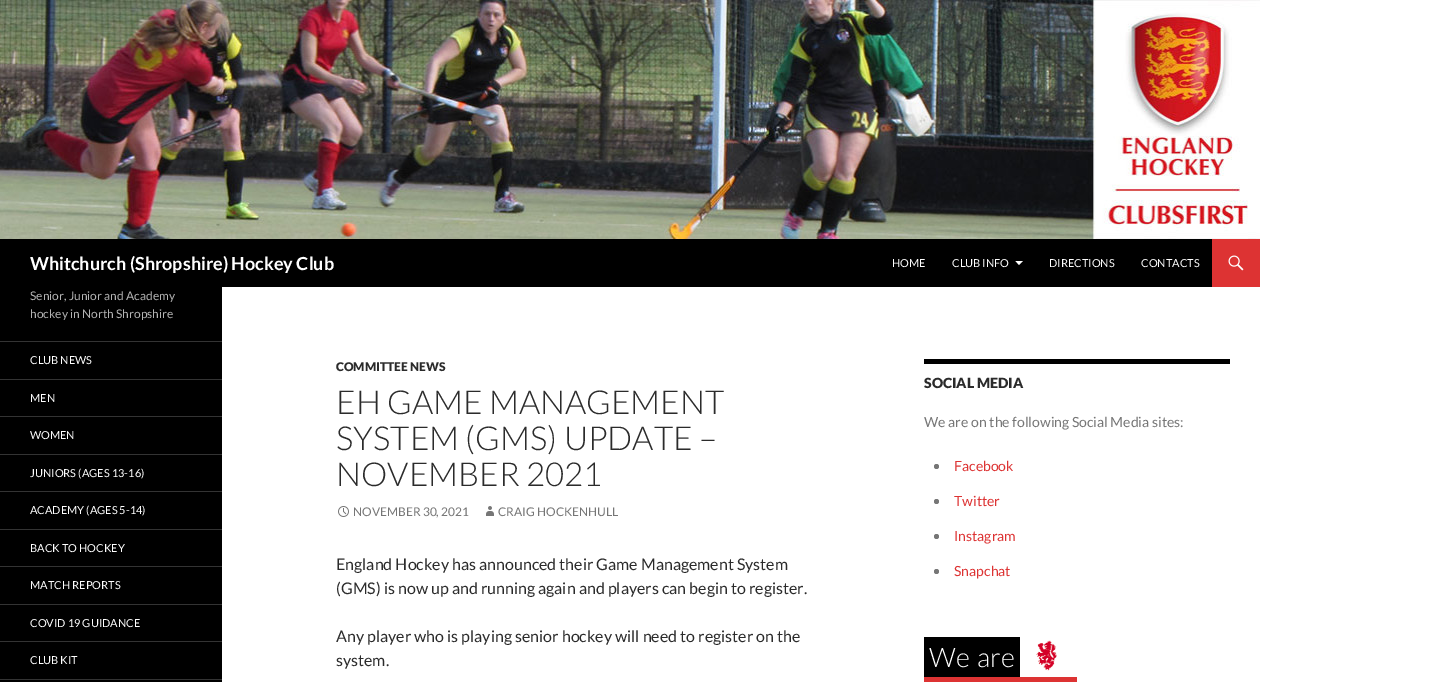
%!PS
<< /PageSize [1434 682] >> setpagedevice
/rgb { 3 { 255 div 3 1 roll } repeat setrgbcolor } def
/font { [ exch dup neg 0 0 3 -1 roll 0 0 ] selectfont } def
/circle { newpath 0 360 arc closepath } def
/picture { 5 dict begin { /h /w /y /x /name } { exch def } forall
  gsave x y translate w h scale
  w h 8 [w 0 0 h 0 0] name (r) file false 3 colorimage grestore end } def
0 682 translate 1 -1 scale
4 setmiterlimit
255 255 255 rgb
0 0 1434 682 rectfill
(img/1.rgb) 0 0 1260 239 picture
0 0 0 rgb
0 239 1212 48 rectfill
255 255 255 rgb
1015.5 261 moveto 1023 261 lineto 1019 265 lineto closepath fill
221 51 51 rgb
1212 239 48 48 rectfill
(img/2.rgb) 1228 255 16 16 picture
[
  [0 287 222 395 0 0 0]
  [0 341 222 1 51 51 51]
  [0 379 222 1 51 51 51]
  [0 416 222 1 51 51 51]
  [0 454 222 1 51 51 51]
  [0 491 222 1 51 51 51]
  [0 529 222 1 51 51 51]
  [0 566 222 1 51 51 51]
  [0 604 222 1 51 51 51]
  [0 641 222 1 51 51 51]
  [0 679 222 1 51 51 51]
] { aload pop rgb rectfill } forall
(img/3.rgb) 338 506 11 11 picture
(img/4.rgb) 486 506 8 10 picture
0 0 0 rgb
924 359 306 5 rectfill
118 118 118 rgb
936.5 466.5 2.5 circle fill
936.5 501.5 2.5 circle fill
936.5 536.5 2.5 circle fill
936.5 571.5 2.5 circle fill
0 0 0 rgb
924 637 96 40 rectfill
(img/5.rgb) 1036 640 21 31 picture
221 51 51 rgb
924 677 153 5 rectfill
/Lato-Bold 18 font
255 255 255 rgb
30 270 moveto (Whitchurch \(Shropshire\) Hockey Club) show
/Lato-Regular 11 font
[
  [(HOME) 892 267]
  [(CLUB INFO) 952 267]
  [(DIRECTIONS) 1049 267]
  [(CONTACTS) 1141 267]
] { aload pop moveto show } forall
/Lato-Regular 12 font
179 179 179 rgb
30 300 moveto (Senior, Junior and Academy) show
30 318 moveto (hockey in North Shropshire) show
/Lato-Regular 11 font
255 255 255 rgb
[
  [(CLUB NEWS) 30 364]
  [(MEN) 30 402]
  [(WOMEN) 30 439]
  [(JUNIORS \(AGES 13-16\)) 30 477]
  [(ACADEMY \(AGES 5-14\)) 30 514]
  [(BACK TO HOCKEY) 30 552]
  [(MATCH REPORTS) 30 589]
  [(COVID 19 GUIDANCE) 30 627]
  [(CLUB KIT) 30 664]
] { aload pop moveto show } forall
/Lato-Black 12 font
43 43 43 rgb
336 371 moveto (COMMITTEE NEWS) show
/Lato-Light 33 font
[
  [(EH GAME MANAGEMENT) 336 414]
  [(SYSTEM \(GMS\) UPDATE –) 336 450]
  [(NOVEMBER 2021) 336 486]
] { aload pop moveto show } forall
/Lato-Regular 12 font
118 118 118 rgb
353 516 moveto (NOVEMBER 30, 2021) show
498 516 moveto (CRAIG HOCKENHULL) show
/Lato-Regular 16 font
43 43 43 rgb
[
  [(England Hockey has announced their Game Management System) 336 570]
  [(\(GMS\) is now up and running again and players can begin to register.) 336 594]
  [(Any player who is playing senior hockey will need to register on the) 336 642]
  [(system.) 336 666]
] { aload pop moveto show } forall
/Lato-Black 14 font
924 388 moveto (SOCIAL MEDIA) show
/Lato-Regular 14 font
118 118 118 rgb
924 427 moveto (We are on the following Social Media sites:) show
221 51 51 rgb
[
  [(Facebook) 954 471]
  [(Twitter) 954 506]
  [(Instagram) 954 541]
  [(Snapchat) 954 576]
] { aload pop moveto show } forall
/Lato-Light 27 font
255 255 255 rgb
929 667 moveto (We) show
977 667 moveto (are) show
showpage
